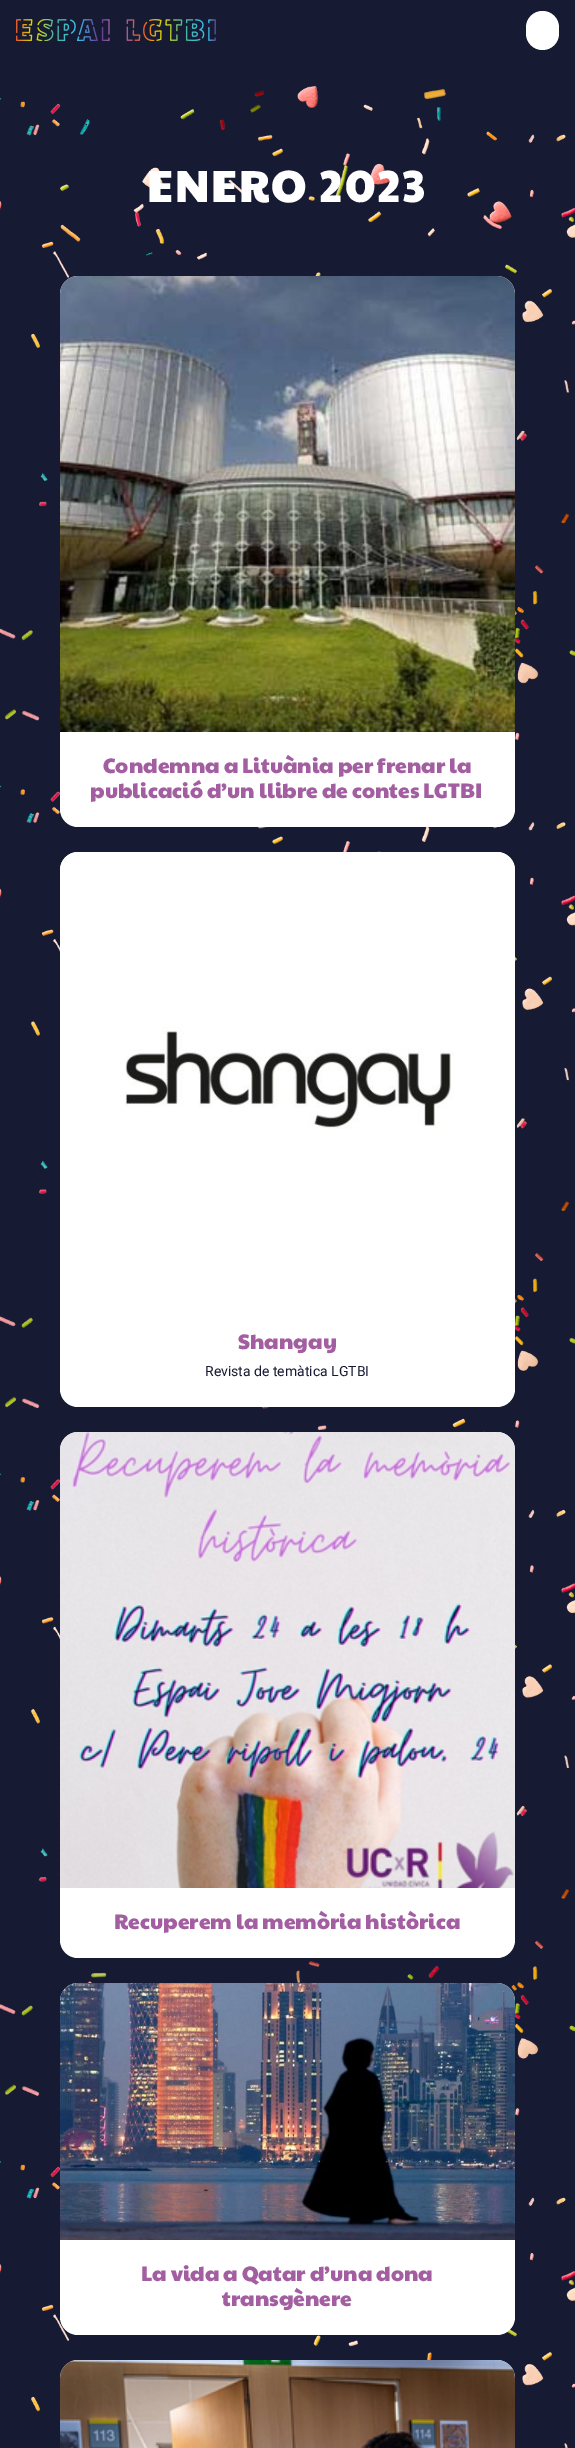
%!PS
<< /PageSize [575 2448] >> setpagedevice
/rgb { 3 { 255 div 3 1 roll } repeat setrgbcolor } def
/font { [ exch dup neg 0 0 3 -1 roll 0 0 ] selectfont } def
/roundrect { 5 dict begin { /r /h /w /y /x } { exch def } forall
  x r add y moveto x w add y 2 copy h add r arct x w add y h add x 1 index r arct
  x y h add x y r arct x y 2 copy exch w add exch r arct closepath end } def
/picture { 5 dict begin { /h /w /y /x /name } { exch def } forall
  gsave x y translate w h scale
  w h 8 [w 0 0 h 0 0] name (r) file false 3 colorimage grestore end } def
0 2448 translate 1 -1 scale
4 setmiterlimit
22 26 50 rgb
0 0 575 2448 rectfill
(img/1.rgb) 16 19 200 22 picture
255 255 255 rgb
526 11 33 39 16.5 roundrect fill
(img/2.rgb) 0 86 575 2362 picture
60 276 455 551 18 roundrect fill
(img/3.rgb) 60 276 455 456 picture
60 852 455 555 18 roundrect fill
(img/4.rgb) 60 852 455 277 picture
60 1432 455 526 18 roundrect fill
(img/5.rgb) 60 1432 455 456 picture
60 1983 455 352 18 roundrect fill
(img/6.rgb) 60 1983 455 257 picture
(img/7.rgb) 60 2360 455 88 picture
/PaytoneOne-Regular 45 font
147 202 moveto 2 0 (ENERO 2023) ashow
/PaytoneOne-Regular 21 font
162 94 161 rgb
[
  [(Condemna a Lituània per frenar la) 103 773]
  [(publicació d’un llibre de contes LGTBI) 90 798]
  [(Shangay) 238 1349]
] { aload pop moveto show } forall
/Roboto-Regular 14 font
22 26 50 rgb
205 1376 moveto (Revista de temàtica LGTBI) show
/PaytoneOne-Regular 21 font
162 94 161 rgb
[
  [(Recuperem la memòria històrica) 114 1929]
  [(La vida a Qatar d’una dona) 141 2281]
  [(transgènere) 222 2306]
] { aload pop moveto show } forall
showpage
